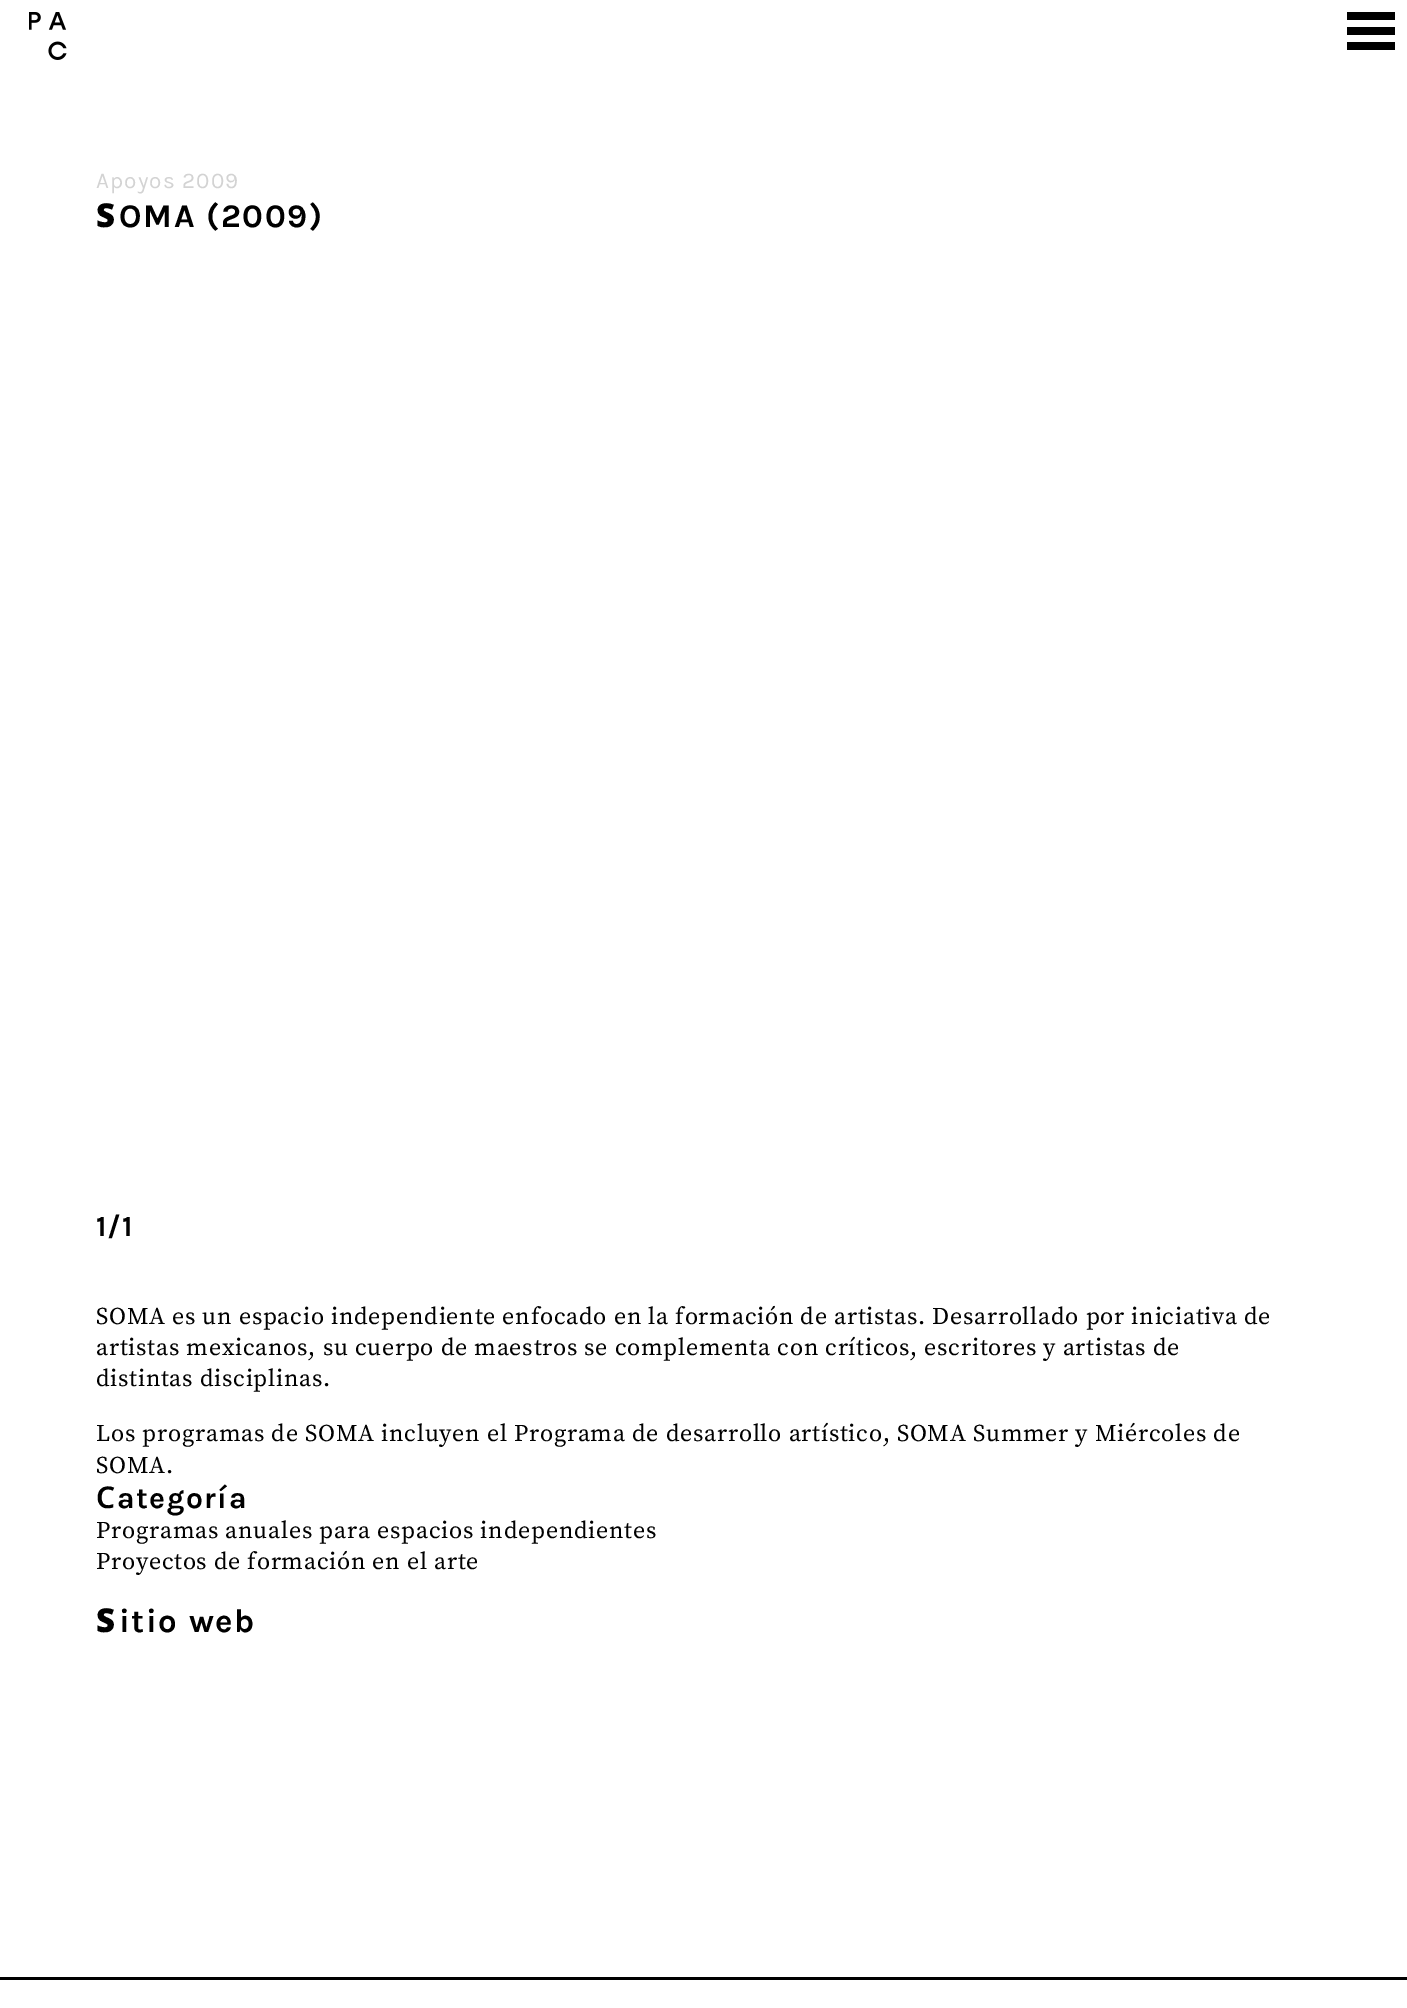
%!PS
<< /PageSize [1407 2008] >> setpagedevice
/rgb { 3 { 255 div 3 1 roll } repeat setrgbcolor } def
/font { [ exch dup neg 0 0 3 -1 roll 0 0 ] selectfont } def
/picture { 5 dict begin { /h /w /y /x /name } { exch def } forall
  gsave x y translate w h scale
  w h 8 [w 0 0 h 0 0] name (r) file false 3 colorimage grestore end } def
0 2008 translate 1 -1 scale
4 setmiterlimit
255 255 255 rgb
0 0 1407 2008 rectfill
(img/1.rgb) 29 12 38 48 picture
[
  [1347 42 48 8 0 0 0]
  [1347 27 48 8 0 0 0]
  [1347 12 48 8 0 0 0]
  [0 1977 1407 3 0 0 0]
] { aload pop rgb rectfill } forall
/Karla-Regular 22.5 font
211 211 211 rgb
96 188 moveto 1.1 0 (Apoyos 2009) ashow
/NotoSans-Black 33 font
0 0 0 rgb
96 227 moveto 1.6 0 (S) ashow
/Karla-Bold 33 font
119 227 moveto 1.6 0 (OMA \(2009\)) ashow
/Karla-Bold 29 font
96 1236 moveto 1 0 (1/1) ashow
/SourceSerifPro-Regular 24 font
96 1324 moveto 0.72 0 (SOMA es un espacio independiente enfocado en la formación de artistas. Desarrollado por iniciativa de) ashow
96 1355 moveto 0.72 0 (artistas mexicanos, su cuerpo de maestros se complementa con críticos, escritores y artistas de) ashow
96 1386 moveto 0.72 0 (distintas disciplinas.) ashow
96 1441 moveto 0.72 0 (Los programas de SOMA incluyen el Programa de desarrollo artístico, SOMA Summer y Miércoles de) ashow
96 1473 moveto 0.72 0 (SOMA.) ashow
/NotoSans-SemiBold 30 font
96 1508 moveto 1.5 0 (C) ashow
/Karla-Bold 30 font
117 1508 moveto 1.5 0 (ategoría) ashow
/SourceSerifPro-Regular 24 font
96 1538 moveto 0.72 0 (Programas anuales para espacios independientes) ashow
96 1569 moveto 0.72 0 (Proyectos de formación en el arte) ashow
/NotoSans-Black 33 font
96 1632 moveto 1.6 0 (S) ashow
/Karla-Bold 33 font
119 1632 moveto 1.6 0 (itio web) ashow
showpage
